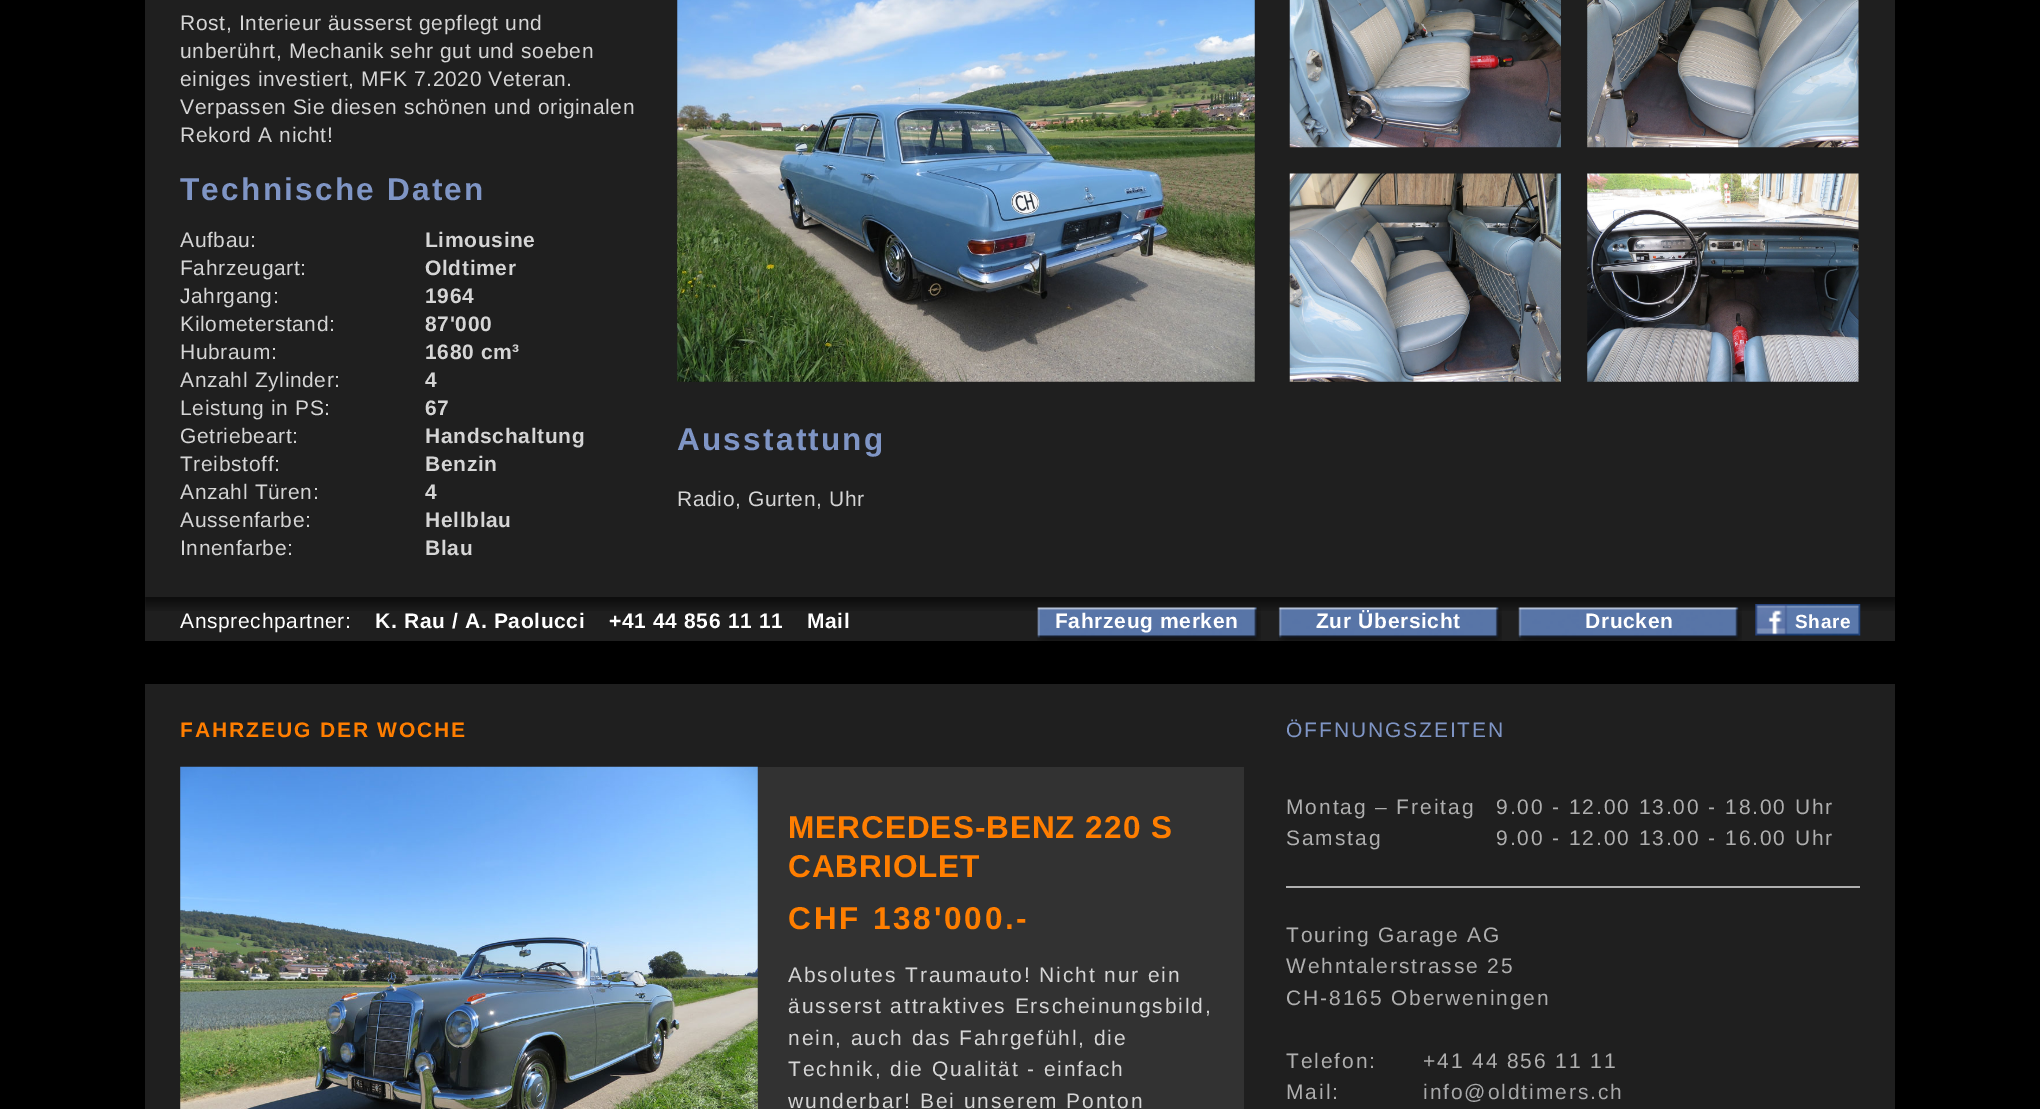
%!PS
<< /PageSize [2040 1109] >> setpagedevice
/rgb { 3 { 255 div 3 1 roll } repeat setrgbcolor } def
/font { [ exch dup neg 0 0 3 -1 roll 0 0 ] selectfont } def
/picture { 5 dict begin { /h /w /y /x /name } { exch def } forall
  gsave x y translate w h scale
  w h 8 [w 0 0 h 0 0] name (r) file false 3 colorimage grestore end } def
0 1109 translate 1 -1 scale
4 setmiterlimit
0 0 0 rgb
0 0 2040 1109 rectfill
31 31 31 rgb
145 0 1750 641 rectfill
(img/1.rgb) 677 0 578 382 picture
(img/2.rgb) 1289 0 272 148 picture
(img/3.rgb) 1587 0 272 148 picture
(img/4.rgb) 1289 173 272 209 picture
(img/5.rgb) 1587 173 272 209 picture
(img/6.rgb) 145 597 1750 14 picture
(img/7.rgb) 1037 607 224 34 picture
(img/8.rgb) 1278 607 224 34 picture
(img/9.rgb) 1518 607 224 34 picture
(img/10.rgb) 1755 604 106 32 picture
145 684 1750 425 rectfill
50 50 50 rgb
180 767 1064 342 rectfill
(img/11.rgb) 180 766 578 343 picture
175 175 175 rgb
1286 886 574 2 rectfill
/LiberationSans-Regular 21 font
213 213 213 rgb
180 30 moveto 0.65 0 (Rost, Interieur äusserst gepflegt und) ashow
180 58 moveto 0.65 0 (unberührt, Mechanik sehr gut und soeben) ashow
180 86 moveto 0.65 0 (einiges investiert, MFK 7.2020 Veteran.) ashow
180 114 moveto 0.65 0 (Verpassen Sie diesen schönen und originalen) ashow
180 142 moveto 0.65 0 (Rekord A nicht!) ashow
/LiberationSans-Bold 31.5 font
127 149 197 rgb
180 200 moveto 2.25 0 (Technische Daten) ashow
/LiberationSans-Regular 21 font
213 213 213 rgb
180 247 moveto 0.65 0 (Aufbau:) ashow
/LiberationSans-Bold 21 font
425 247 moveto 0.65 0 (Limousine) ashow
/LiberationSans-Regular 21 font
180 275 moveto 0.65 0 (Fahrzeugart:) ashow
/LiberationSans-Bold 21 font
425 275 moveto 0.65 0 (Oldtimer) ashow
/LiberationSans-Regular 21 font
180 303 moveto 0.65 0 (Jahrgang:) ashow
/LiberationSans-Bold 21 font
425 303 moveto 0.65 0 (1964) ashow
/LiberationSans-Regular 21 font
180 331 moveto 0.65 0 (Kilometerstand:) ashow
/LiberationSans-Bold 21 font
425 331 moveto 0.65 0 (87'000) ashow
/LiberationSans-Regular 21 font
180 359 moveto 0.65 0 (Hubraum:) ashow
/LiberationSans-Bold 21 font
425 359 moveto 0.65 0 (1680 cm³) ashow
/LiberationSans-Regular 21 font
180 387 moveto 0.65 0 (Anzahl Zylinder:) ashow
/LiberationSans-Bold 21 font
425 387 moveto 0.65 0 (4) ashow
/LiberationSans-Regular 21 font
180 415 moveto 0.65 0 (Leistung in PS:) ashow
/LiberationSans-Bold 21 font
425 415 moveto 0.65 0 (67) ashow
/LiberationSans-Regular 21 font
180 443 moveto 0.65 0 (Getriebeart:) ashow
/LiberationSans-Bold 21 font
425 443 moveto 0.65 0 (Handschaltung) ashow
/LiberationSans-Regular 21 font
180 471 moveto 0.65 0 (Treibstoff:) ashow
/LiberationSans-Bold 21 font
425 471 moveto 0.65 0 (Benzin) ashow
/LiberationSans-Regular 21 font
180 499 moveto 0.65 0 (Anzahl Türen:) ashow
/LiberationSans-Bold 21 font
425 499 moveto 0.65 0 (4) ashow
/LiberationSans-Regular 21 font
180 527 moveto 0.65 0 (Aussenfarbe:) ashow
/LiberationSans-Bold 21 font
425 527 moveto 0.65 0 (Hellblau) ashow
/LiberationSans-Regular 21 font
180 555 moveto 0.65 0 (Innenfarbe:) ashow
/LiberationSans-Bold 21 font
425 555 moveto 0.65 0 (Blau) ashow
/LiberationSans-Bold 31.5 font
127 149 197 rgb
677 450 moveto 2.25 0 (Ausstattung) ashow
/LiberationSans-Regular 21 font
213 213 213 rgb
677 506 moveto 0.65 0 (Radio, Gurten, Uhr) ashow
255 255 255 rgb
180 628 moveto 0.65 0 (Ansprechpartner:) ashow
/LiberationSans-Bold 21 font
375 628 moveto 0.65 0 (K. Rau / A. Paolucci) ashow
609 628 moveto 0.65 0 (+41 44 856 11 11) ashow
807 628 moveto 0.65 0 (Mail) ashow
1055 628 moveto 0.65 0 (Fahrzeug merken) ashow
1316 628 moveto 0.65 0 (Zur Übersicht) ashow
1585 628 moveto 0.65 0 (Drucken) ashow
/LiberationSans-Bold 19 font
1795 628 moveto 0.65 0 (Share) ashow
/LiberationSans-Bold 21 font
255 126 0 rgb
180 737 moveto 1.9 0 (FAHRZEUG DER WOCHE) ashow
/LiberationSans-Bold 31.5 font
788 838 moveto 1 0 (MERCEDES-BENZ 220 S) ashow
788 877 moveto 1 0 (CABRIOLET) ashow
788 929 moveto 2.8 0 (CHF 138'000.-) ashow
/LiberationSans-Regular 21 font
213 213 213 rgb
788 982 moveto 1.9 0 (Absolutes Traumauto! Nicht nur ein) ashow
788 1013 moveto 1.9 0 (äusserst attraktives Erscheinungsbild,) ashow
788 1045 moveto 1.9 0 (nein, auch das Fahrgefühl, die) ashow
788 1076 moveto 1.9 0 (Technik, die Qualität - einfach) ashow
788 1108 moveto 1.9 0 (wunderbar! Bei unserem Ponton) ashow
127 149 197 rgb
1286 737 moveto 1.9 0 (ÖFFNUNGSZEITEN) ashow
175 175 175 rgb
1286 814 moveto 1.9 0 (Montag – Freitag) ashow
1496 814 moveto 1.9 0 (9.00 - 12.00 13.00 - 18.00 Uhr) ashow
1286 845 moveto 1.9 0 (Samstag) ashow
1496 845 moveto 1.9 0 (9.00 - 12.00 13.00 - 16.00 Uhr) ashow
1286 942 moveto 1.9 0 (Touring Garage AG) ashow
1286 973 moveto 1.9 0 (Wehntalerstrasse 25) ashow
1286 1005 moveto 1.9 0 (CH-8165 Oberweningen) ashow
1286 1068 moveto 1.9 0 (Telefon:) ashow
1423 1068 moveto 1.9 0 (+41 44 856 11 11) ashow
1286 1099 moveto 1.9 0 (Mail:) ashow
168 169 170 rgb
1423 1099 moveto 1.9 0 (info@oldtimers.ch) ashow
showpage
